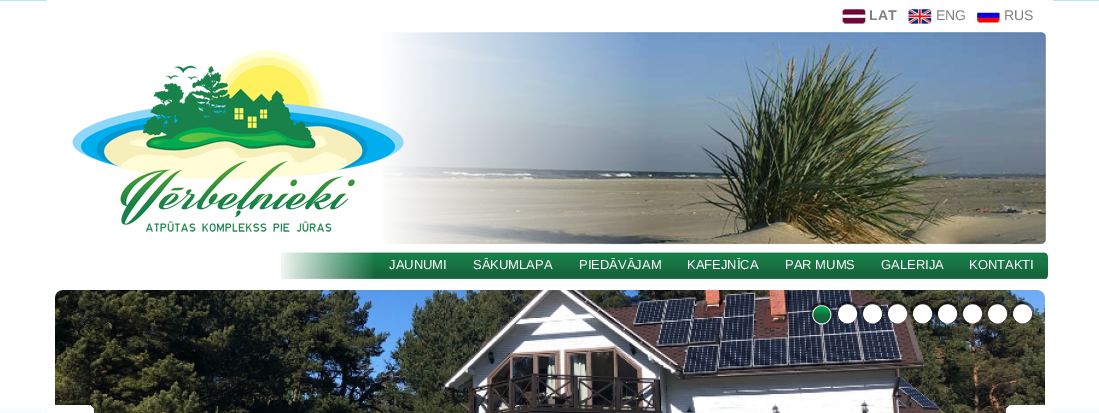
%!PS
<< /PageSize [1099 413] >> setpagedevice
/rgb { 3 { 255 div 3 1 roll } repeat setrgbcolor } def
/font { [ exch dup neg 0 0 3 -1 roll 0 0 ] selectfont } def
/picture { 5 dict begin { /h /w /y /x /name } { exch def } forall
  gsave x y translate w h scale
  w h 8 [w 0 0 h 0 0] name (r) file false 3 colorimage grestore end } def
0 413 translate 1 -1 scale
4 setmiterlimit
255 255 255 rgb
0 0 1099 413 rectfill
(img/1.rgb) 0 0 1099 413 picture
47 0 1006 413 rectfill
(img/2.rgb) 842 9 24 15 picture
(img/3.rgb) 908 9 24 15 picture
(img/4.rgb) 977 8 23 15 picture
(img/5.rgb) 383 32 663 213 picture
(img/6.rgb) 72 50 332 182 picture
(img/7.rgb) 374 252 674 27 picture
(img/8.rgb) 281 252 93 27 picture
(img/9.rgb) 55 290 990 123 picture
(img/10.rgb) 810 302 24 23 picture
(img/11.rgb) 835 301 24 23 picture
(img/12.rgb) 860 301 24 23 picture
(img/13.rgb) 885 301 24 23 picture
(img/14.rgb) 910 301 24 23 picture
(img/15.rgb) 935 301 24 23 picture
(img/16.rgb) 960 301 24 23 picture
(img/17.rgb) 985 301 24 23 picture
(img/18.rgb) 1010 301 24 23 picture
(img/19.rgb) 55 405 39 8 picture
(img/20.rgb) 1006 405 39 8 picture
/LiberationSans-Bold 14 font
128 128 128 rgb
869 20 moveto (LAT) show
/LiberationSans-Regular 14 font
936 20 moveto (ENG) show
1004 20 moveto (RUS) show
/LiberationSans-Regular 13 font
255 255 255 rgb
[
  [(JAUNUMI) 389 269]
  [(SĀKUMLAPA) 473 269]
  [(PIEDĀVĀJAM) 579 269]
  [(KAFEJNĪCA) 687 269]
  [(PAR MUMS) 785 269]
  [(GALERIJA) 881 269]
  [(KONTAKTI) 969 269]
] { aload pop moveto show } forall
showpage
